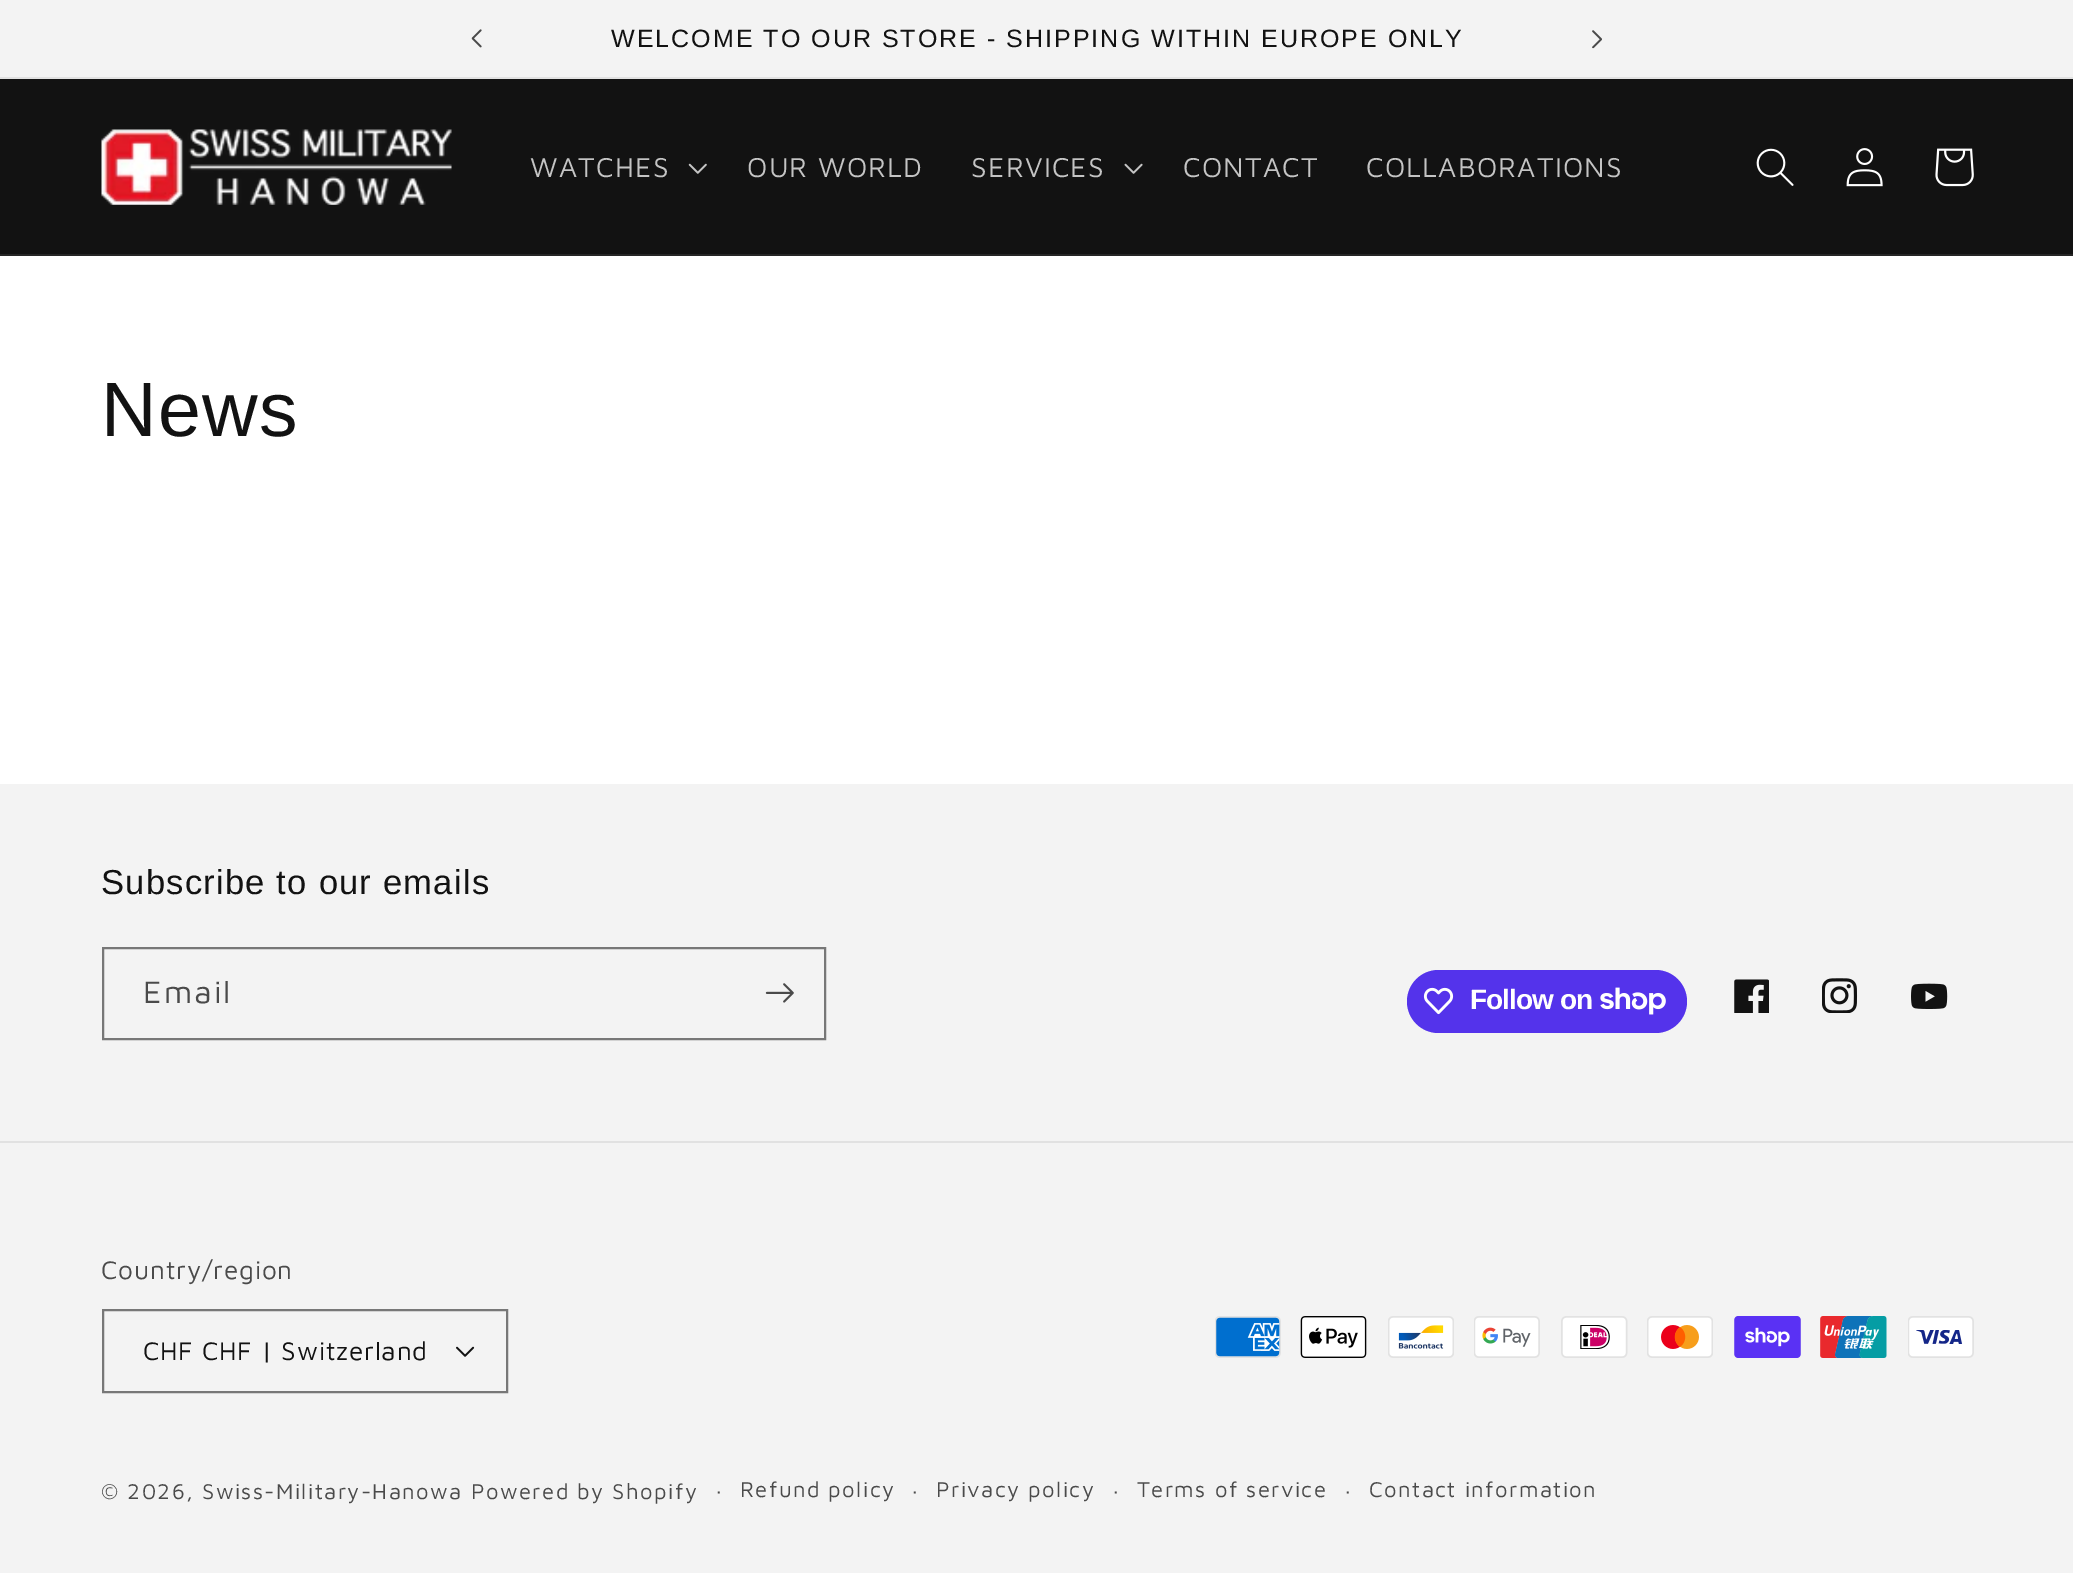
%!PS
<< /PageSize [2073 1573] >> setpagedevice
/rgb { 3 { 255 div 3 1 roll } repeat setrgbcolor } def
/font { [ exch dup neg 0 0 3 -1 roll 0 0 ] selectfont } def
/roundrect { 5 dict begin { /r /h /w /y /x } { exch def } forall
  x r add y moveto x w add y 2 copy h add r arct x w add y h add x 1 index r arct
  x y h add x y r arct x y 2 copy exch w add exch r arct closepath end } def
/picture { 5 dict begin { /h /w /y /x /name } { exch def } forall
  gsave x y translate w h scale
  w h 8 [w 0 0 h 0 0] name (r) file false 3 colorimage grestore end } def
0 1573 translate 1 -1 scale
4 setmiterlimit
255 255 255 rgb
0 0 2073 1573 rectfill
243 243 243 rgb
0 0 2073 77 rectfill
225 225 225 rgb
0 77 2073 2 rectfill
(img/1.rgb) 471 29 11 19 picture
(img/2.rgb) 1592 30 10 19 picture
18 18 18 rgb
0 79 2073 175 rectfill
37 37 37 rgb
0 254 2073 2 rectfill
(img/3.rgb) 101 129 351 76 picture
(img/4.rgb) 688 163 19 11 picture
(img/5.rgb) 1124 163 19 11 picture
(img/6.rgb) 1756 148 38 38 picture
(img/7.rgb) 1846 148 37 39 picture
(img/8.rgb) 1935 148 39 39 picture
243 243 243 rgb
0 784 2073 789 rectfill
119 119 119 rgb
2 setlinewidth
103 948 722 91 rectstroke
(img/9.rgb) 765 983 29 20 picture
84 51 235 rgb
1407 970 280 63 31.5 roundrect fill
(img/10.rgb) 1423 987 31 28 picture
(img/11.rgb) 1600 987 66 28 picture
(img/12.rgb) 1734 979 35 34 picture
(img/13.rgb) 1822 978 36 35 picture
(img/14.rgb) 1911 983 37 26 picture
225 225 225 rgb
0 1141 2073 2 rectfill
(img/15.rgb) 456 1346 19 11 picture
119 119 119 rgb
103 1310 404 82 rectstroke
(img/16.rgb) 1215 1316 66 42 picture
(img/17.rgb) 1300 1316 67 42 picture
(img/18.rgb) 1388 1316 66 42 picture
(img/19.rgb) 1474 1316 66 42 picture
(img/20.rgb) 1561 1316 67 42 picture
(img/21.rgb) 1647 1316 66 42 picture
(img/22.rgb) 1734 1316 67 42 picture
(img/23.rgb) 1820 1316 67 42 picture
(img/24.rgb) 1908 1316 66 42 picture
/Arimo-Regular 25.05 font
18 18 18 rgb
611 47 moveto 2 0 (WELCOME TO OUR STORE - SHIPPING WITHIN EUROPE ONLY) ashow
/MavenPro-Regular 28.25 font
196 196 196 rgb
530 177 moveto 1.25 0 (WATCHES) ashow
747 177 moveto 1.25 0 (OUR WORLD) ashow
971 177 moveto 1.25 0 (SERVICES) ashow
1183 177 moveto 1.25 0 (CONTACT) ashow
1366 177 moveto 1.25 0 (COLLABORATIONS) ashow
/Arimo-Regular 77 font
18 18 18 rgb
101 436 moveto 1.2 0 (News) ashow
/Arimo-Regular 34.6 font
101 894 moveto 1.2 0 (Subscribe to our emails) ashow
/MavenPro-Regular 32 font
74 74 74 rgb
143 1003 moveto 2 0 (Email) ashow
/LiberationSans-Bold 28 font
255 255 255 rgb
1470 1009 moveto -0.9 0 (Follow on) ashow
/MavenPro-Regular 26.25 font
74 74 74 rgb
101 1279 moveto 0.8 0 (Country/region) ashow
18 18 18 rgb
143 1360 moveto 0.8 0 (CHF CHF | Switzerland) ashow
/MavenPro-Regular 22.1 font
74 74 74 rgb
101 1499 moveto 1.4 0 (© 2026, Swiss-Military-Hanowa) ashow
471 1499 moveto 1.4 0 (Powered by Shopify) ashow
/MavenPro-Regular 24 font
715 1499 moveto 1.4 0 (·) ashow
/MavenPro-Regular 22.1 font
740 1497 moveto 1.4 0 (Refund policy) ashow
/MavenPro-Regular 24 font
911 1499 moveto 1.4 0 (·) ashow
/MavenPro-Regular 22.1 font
936 1497 moveto 1.4 0 (Privacy policy) ashow
/MavenPro-Regular 24 font
1112 1499 moveto 1.4 0 (·) ashow
/MavenPro-Regular 22.1 font
1137 1497 moveto 1.4 0 (Terms of service) ashow
/MavenPro-Regular 24 font
1344 1499 moveto 1.4 0 (·) ashow
/MavenPro-Regular 22.1 font
1369 1497 moveto 1.4 0 (Contact information) ashow
showpage
